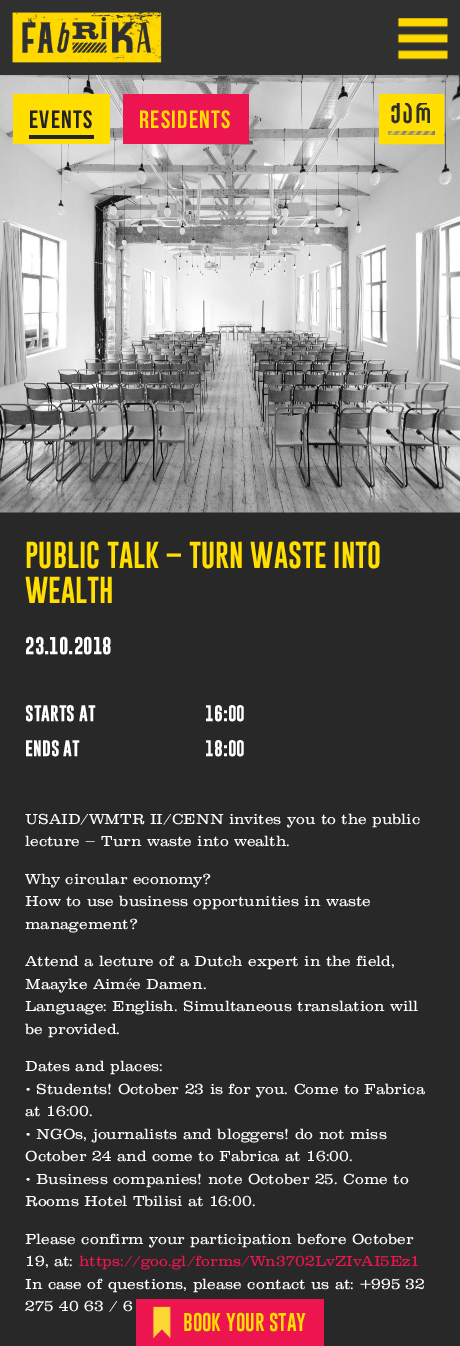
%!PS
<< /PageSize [460 1346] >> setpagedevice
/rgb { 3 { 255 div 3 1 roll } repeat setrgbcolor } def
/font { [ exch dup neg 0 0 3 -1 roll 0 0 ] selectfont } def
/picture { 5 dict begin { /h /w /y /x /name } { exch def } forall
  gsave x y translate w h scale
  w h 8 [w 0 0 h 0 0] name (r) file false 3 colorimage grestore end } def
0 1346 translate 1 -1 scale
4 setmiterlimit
40 40 40 rgb
0 0 460 1346 rectfill
48 48 48 rgb
0 0 460 75 rectfill
(img/1.rgb) 397 18 51 42 picture
(img/2.rgb) 12 12 150 51 picture
(img/4.rgb) 0 75 460 438 picture
[
  [13 94 97 50 255 222 0]
  [29 135 65 4 35 35 35]
  [123 94 126 50 237 21 80]
] { aload pop rgb rectfill } forall
255 222 0 rgb
9 setlinewidth
383.5 98.5 56 41 rectstroke
388 103 47 28 rectfill
(img/3.rgb) 388 131 47 4 picture
237 21 80 rgb
136 1299 188 47 rectfill
(img/5.rgb) 152 1306 19 33 picture
/BebasNeue-Bold 25 font
35 35 35 rgb
29 128 moveto 1.25 0 (events) ashow
255 222 0 rgb
139 128 moveto 1.25 0 (residents) ashow
gsave
388 103 47 32 rectclip
/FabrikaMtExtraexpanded-Bold 29 font
47 47 47 rgb
390 123 moveto 1.25 0 (ქარ) ashow
grestore
/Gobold-Bold 27.5 font
25 568 moveto (PUBLIC TALK – TURN WASTE INTO) show
25 603 moveto (WEALTH) show
/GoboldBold-Bold 17.5 font
255 255 255 rgb
25 654 moveto (23.10.2018) show
/GoboldBold-Bold 16.25 font
[
  [(STARTS AT) 25 721]
  [(16:00) 205 721]
  [(ENDS AT) 25 756]
  [(18:00) 205 756]
] { aload pop moveto show } forall
/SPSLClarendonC-Regular 15 font
[
  [(USAID/WMTR II/CENN invites you to the public) 25 824]
  [(lecture – Turn waste into wealth.) 25 846]
  [(Why circular economy?) 25 884]
  [(How to use business opportunities in waste) 25 906]
  [(management?) 25 929]
  [(Attend a lecture of a Dutch expert in the field,) 25 966]
  [(Maayke Aim) 25 989]
] { aload pop moveto show } forall
/LiberationSerif-Regular 15 font
126 989 moveto (é) show
/SPSLClarendonC-Regular 15 font
[
  [(e Damen.) 132 989]
  [(Language: English. Simultaneous translation will) 25 1011]
  [(be provided.) 25 1034]
  [(Dates and places:) 25 1071]
  [(• Students! October 23 is for you. Come to Fabrica) 25 1094]
  [(at 16:00.) 25 1116]
  [(• NGOs, journalists and bloggers! do not miss) 25 1139]
  [(October 24 and come to Fabrica at 16:00.) 25 1161]
  [(• Business companies! note October 25. Come to) 25 1184]
  [(Rooms Hotel Tbilisi at 16:00.) 25 1206]
  [(Please confirm your participation before October) 25 1244]
  [(19, at:) 25 1266]
] { aload pop moveto show } forall
237 21 80 rgb
79 1266 moveto (https://goo.gl/forms/Wn3702LvZIvAI5Ez1) show
255 255 255 rgb
25 1289 moveto (In case of questions, please contact us at: +995 32) show
25 1311 moveto (275 40 63 / 6) show
/Gobold-Bold 18.75 font
255 222 0 rgb
183 1331 moveto (BOOK YOUR STAY) show
showpage
